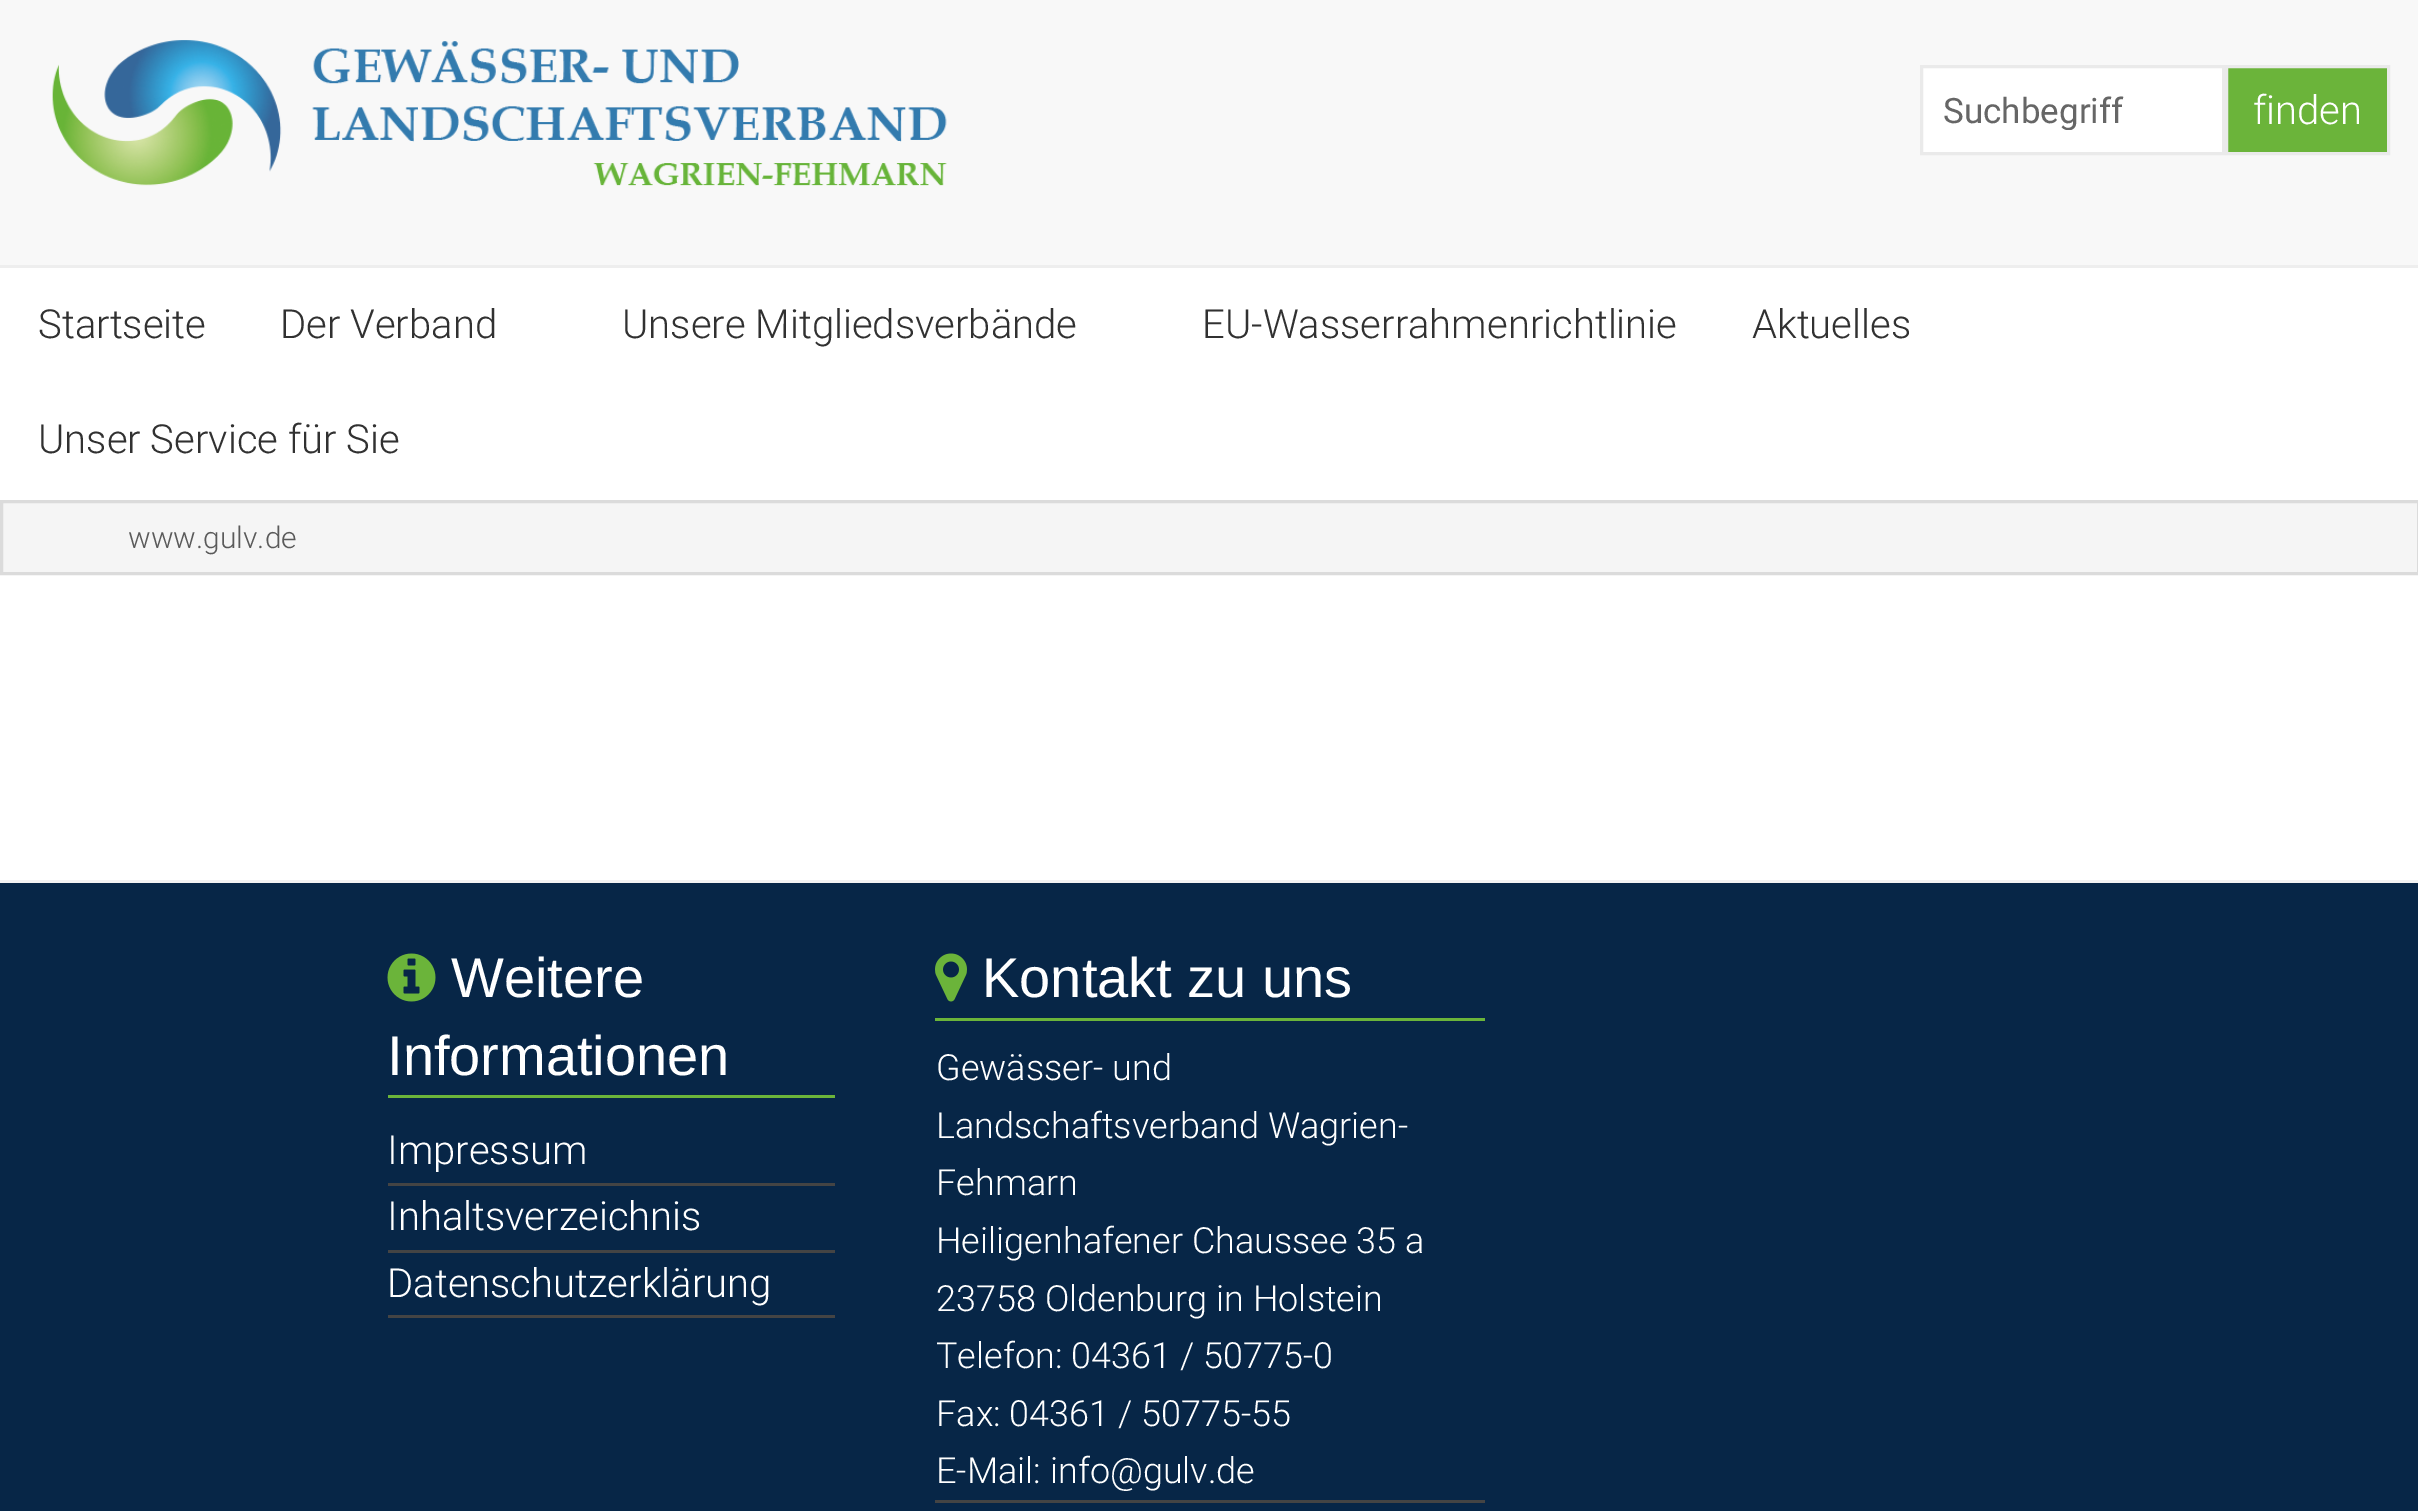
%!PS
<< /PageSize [2418 1511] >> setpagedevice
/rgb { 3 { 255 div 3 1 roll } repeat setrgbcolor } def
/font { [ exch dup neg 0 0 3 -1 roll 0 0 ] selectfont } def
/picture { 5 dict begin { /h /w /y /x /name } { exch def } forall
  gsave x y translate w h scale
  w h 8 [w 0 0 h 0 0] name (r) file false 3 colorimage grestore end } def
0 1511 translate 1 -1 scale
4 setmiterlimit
255 255 255 rgb
0 0 2418 1511 rectfill
248 248 248 rgb
0 0 2418 265 rectfill
(img/1.rgb) 52 40 895 146 picture
255 255 255 rgb
1921.5 66.5 moveto 2223.5 66.5 lineto 2223.5 153.5 lineto 1921.5 153.5 lineto closepath gsave fill grestore
234 234 234 rgb
3 setlinewidth
stroke
107 180 58 rgb
2226.5 66.5 moveto 2388.5 66.5 lineto 2388.5 153.5 lineto 2226.5 153.5 lineto closepath gsave fill grestore
234 234 234 rgb
stroke
238 238 238 rgb
0 265 2418 3 rectfill
245 245 245 rgb
1.5 501.5 moveto 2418.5 501.5 lineto 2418.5 573.5 lineto 1.5 573.5 lineto closepath gsave fill grestore
219 219 219 rgb
stroke
[
  [0 883 2418 628 7 38 71]
  [0 880 2418 3 242 242 242]
  [388 1095 447 3 107 180 58]
] { aload pop rgb rectfill } forall
(img/2.rgb) 387 953 49 49 picture
[
  [388 1183 447 3 68 68 68]
  [388 1250 447 3 68 68 68]
  [388 1315 447 3 68 68 68]
  [935 1018 550 3 107 180 58]
] { aload pop rgb rectfill } forall
(img/3.rgb) 935 953 32 49 picture
68 68 68 rgb
935 1500 550 3 rectfill
gsave
1943 90 260 40 rectclip
/Roboto-Regular 35 font
102 102 102 rgb
1943 123 moveto (Suchbegriff) show
grestore
/Roboto-Light 40 font
255 255 255 rgb
2253 124 moveto (finden) show
49 49 49 rgb
[
  [(Startseite) 38 338]
  [(Der Verband) 280 338]
  [(Unsere Mitgliedsverbände) 622 338]
  [(EU-Wasserrahmenrichtlinie) 1202 338]
  [(Aktuelles) 1752 338]
  [(Unser Service für Sie) 38 453]
] { aload pop moveto show } forall
/Roboto-Light 30 font
90 90 90 rgb
128 548 moveto (www.gulv.de) show
/LiberationSans-Regular 56 font
255 255 255 rgb
451 997 moveto (Weitere) show
387 1075 moveto (Informationen) show
/Roboto-Light 40 font
[
  [(Impressum) 387 1164]
  [(Inhaltsverzeichnis) 387 1230]
  [(Datenschutzerklärung) 387 1297]
] { aload pop moveto show } forall
/LiberationSans-Regular 56 font
982 997 moveto (Kontakt zu uns) show
/Roboto-Light 36 font
[
  [(Gewässer- und) 936 1080]
  [(Landschaftsverband Wagrien-) 936 1138]
  [(Fehmarn) 936 1195]
  [(Heiligenhafener Chaussee 35 a) 936 1253]
  [(23758 Oldenburg in Holstein) 936 1311]
  [(Telefon: 04361 / 50775-0) 936 1368]
  [(Fax: 04361 / 50775-55) 936 1426]
  [(E-Mail: info@gulv.de) 936 1483]
] { aload pop moveto show } forall
showpage
